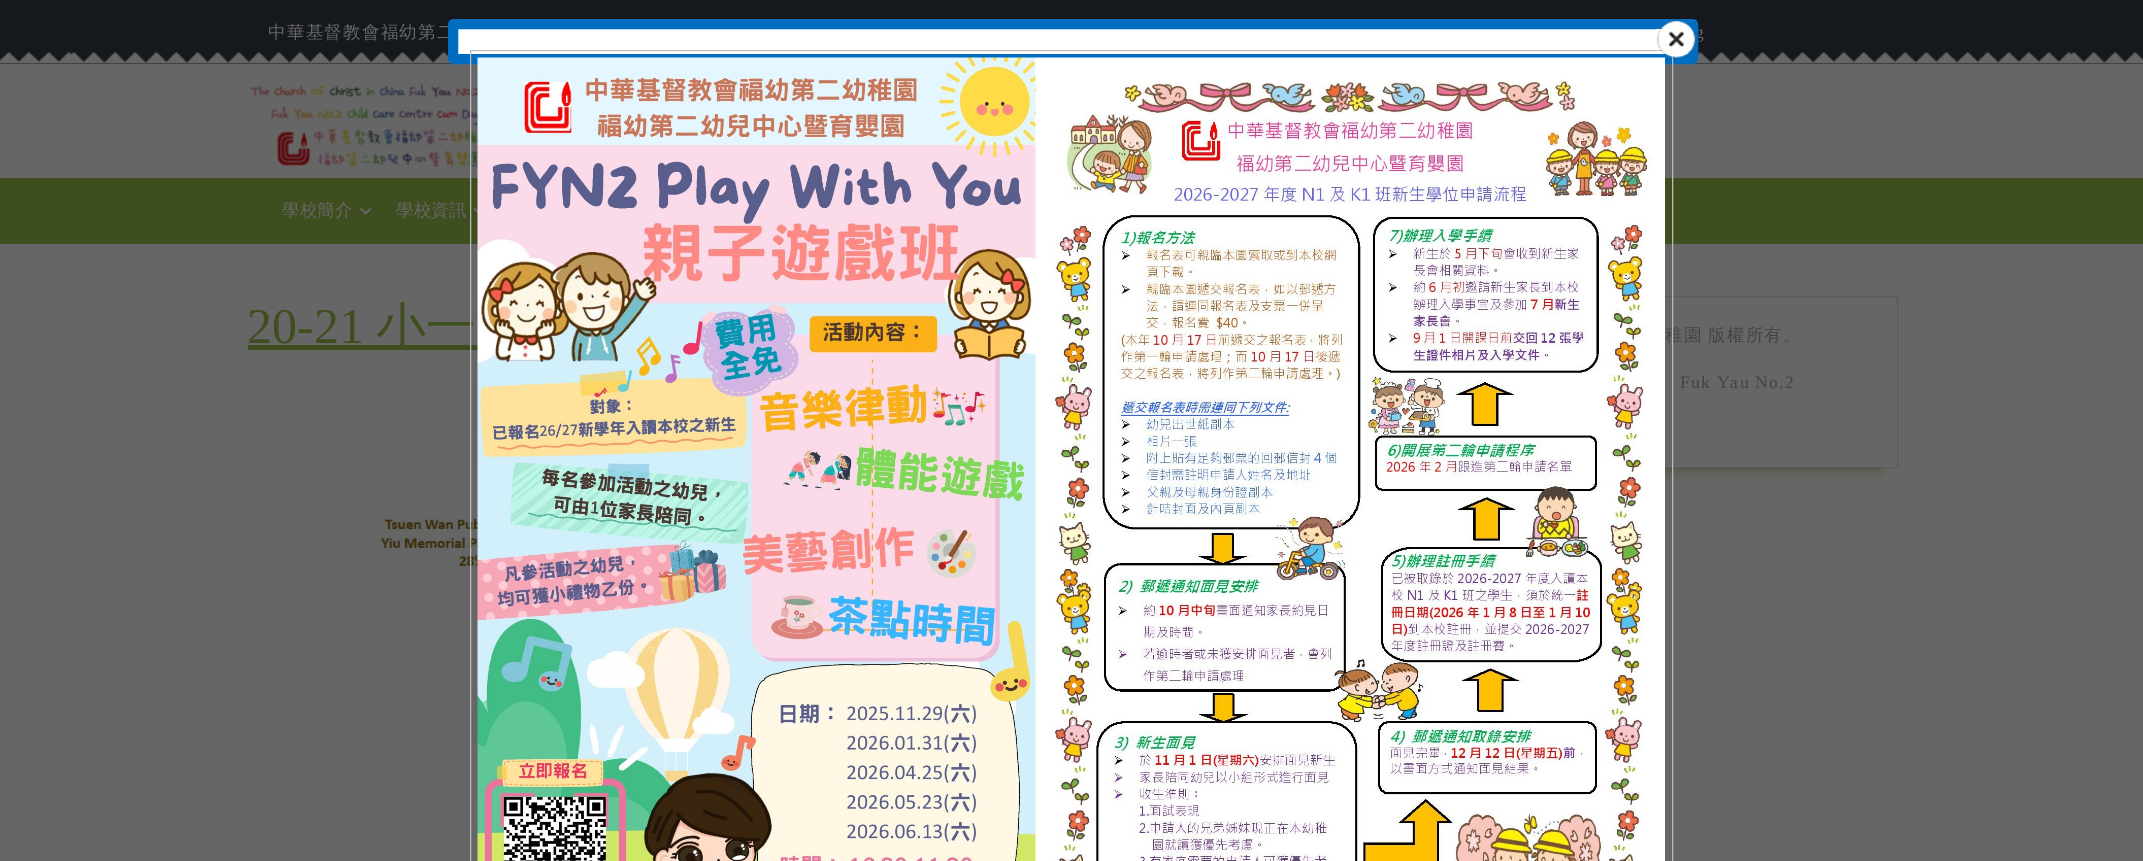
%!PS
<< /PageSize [2143 861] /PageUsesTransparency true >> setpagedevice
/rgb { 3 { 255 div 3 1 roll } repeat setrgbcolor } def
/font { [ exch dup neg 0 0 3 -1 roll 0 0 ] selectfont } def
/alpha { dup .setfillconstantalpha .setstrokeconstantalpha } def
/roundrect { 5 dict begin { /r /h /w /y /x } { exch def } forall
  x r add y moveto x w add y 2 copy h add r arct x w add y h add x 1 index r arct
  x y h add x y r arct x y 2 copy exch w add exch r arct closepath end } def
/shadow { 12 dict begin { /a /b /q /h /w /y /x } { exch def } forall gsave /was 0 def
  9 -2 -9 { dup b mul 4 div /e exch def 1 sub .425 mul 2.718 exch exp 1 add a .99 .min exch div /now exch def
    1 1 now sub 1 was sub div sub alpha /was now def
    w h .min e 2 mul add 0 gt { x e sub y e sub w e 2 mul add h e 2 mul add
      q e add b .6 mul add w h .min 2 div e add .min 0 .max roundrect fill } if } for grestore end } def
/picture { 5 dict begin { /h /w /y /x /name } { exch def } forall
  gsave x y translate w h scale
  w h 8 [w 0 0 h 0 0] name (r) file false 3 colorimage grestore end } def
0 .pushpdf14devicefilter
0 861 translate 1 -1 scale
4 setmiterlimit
102 102 102 rgb
0 0 2143 861 rectfill
21 24 29 rgb
0 0 2143 64 rectfill
(img/3.rgb) 0 52 2143 12 picture
(img/4.rgb) 250 83 228 85 picture
62 78 31 rgb
0 178 2143 66 rectfill
(img/5.rgb) 360 207 12 8 picture
(img/6.rgb) 473 207 5 7 picture
248 345 230 5 rectfill
(img/7.rgb) 370 393 108 468 picture
gsave
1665 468 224 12 rectclip
1386 334 493 134 0 6 1 shadow
grestore
90 90 90 rgb
1368.5 296.5 529 171 rectstroke
/WenQuanYiZenHei-Medium 17.5 font
102 102 102 rgb
268 38 moveto -1 0 32 1.25 0 (中華基督教會福幼第二) awidthshow
/LiberationSerif-Regular 17.5 font
1695 38 moveto 1.25 0 (g) ashow
255 255 255 rgb
453 24 1240 35 1 roundrect gsave fill grestore
0 109 193 rgb
10 setlinewidth
stroke
/WenQuanYiZenHei-Medium 17.5 font
102 102 102 rgb
282 216 moveto (學校簡介) show
396 216 moveto (學校資訊) show
/LiberationSerif-Regular 50 font
62 78 31 rgb
247 343 moveto (20-21) show
/WenQuanYiZenHei-Medium 50 font
376 343 moveto (小一) show
/WenQuanYiZenHei-Medium 17.5 font
68 68 68 rgb
1665 341 moveto 1.25 0 (稚園) ashow
187 187 187 rgb
1 setlinewidth
470.5 50.5 1202 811 rectstroke
(img/1.rgb) 477 57 1188 804 picture
(img/2.rgb) 1656 20 41 39 picture
68 68 68 rgb
1708 341 moveto 1.25 0 (版權所有。) ashow
/LiberationSerif-Regular 17.5 font
1680 388 moveto 1.25 0 (Fuk Yau No.2) ashow
.poppdf14devicefilter showpage
